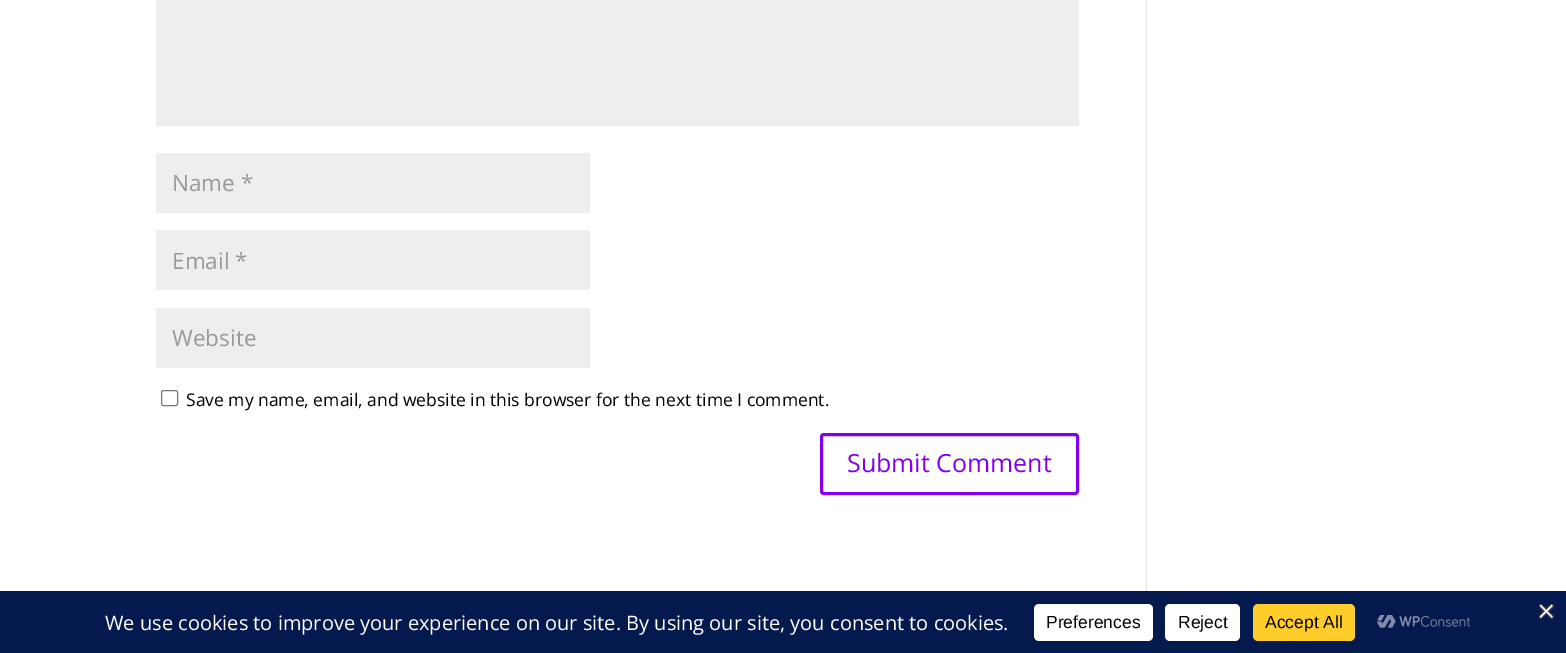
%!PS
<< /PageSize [1566 653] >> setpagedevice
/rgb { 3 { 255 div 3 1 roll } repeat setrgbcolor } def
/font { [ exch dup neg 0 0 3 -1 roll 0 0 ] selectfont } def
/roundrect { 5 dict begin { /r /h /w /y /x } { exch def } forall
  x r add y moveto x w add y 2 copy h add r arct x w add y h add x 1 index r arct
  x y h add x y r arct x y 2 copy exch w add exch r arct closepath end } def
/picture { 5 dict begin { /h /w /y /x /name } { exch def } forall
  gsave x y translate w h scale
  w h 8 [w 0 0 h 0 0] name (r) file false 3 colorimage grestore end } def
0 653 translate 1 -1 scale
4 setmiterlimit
255 255 255 rgb
0 0 1566 653 rectfill
[
  [156 0 923 126 238 238 238]
  [156 153 434 60 238 238 238]
  [156 230 434 60 238 238 238]
  [156 308 434 60 238 238 238]
] { aload pop rgb rectfill } forall
118 118 118 rgb
161.5 390.5 16 15 2 roundrect stroke
131 0 233 rgb
3 setlinewidth
821.5 434.5 256 59 2.5 roundrect stroke
226 226 226 rgb
1146 0 1 591 rectfill
4 25 78 rgb
0 591 1566 62 rectfill
(img/1.rgb) 1539 604 15 15 picture
255 255 255 rgb
1034 604 119 37 5 roundrect fill
1165 604 75 37 5 roundrect fill
255 205 42 rgb
1253 604 102 37 5 roundrect fill
(img/2.rgb) 1377 615 93 13 picture
/OpenSans-Regular 22.5 font
153 153 153 rgb
[
  [(Name *) 172 191]
  [(Email *) 172 269]
  [(Website) 172 346]
] { aload pop moveto show } forall
/OpenSans-Regular 17.5 font
0 0 0 rgb
186 406 moveto (Save my name, email, and website in this browser for the next time I comment.) show
/OpenSans-Regular 25 font
131 0 233 rgb
847 472 moveto (Submit Comment) show
/OpenSans-Regular 20 font
255 255 255 rgb
105 630 moveto (We use cookies to improve your experience on our site. By using our site, you consent to cookies.) show
/LiberationSans-Regular 17.5 font
0 0 0 rgb
[
  [(Preferences) 1046 628]
  [(Reject) 1178 628]
  [(Accept All) 1265 628]
] { aload pop moveto show } forall
showpage
